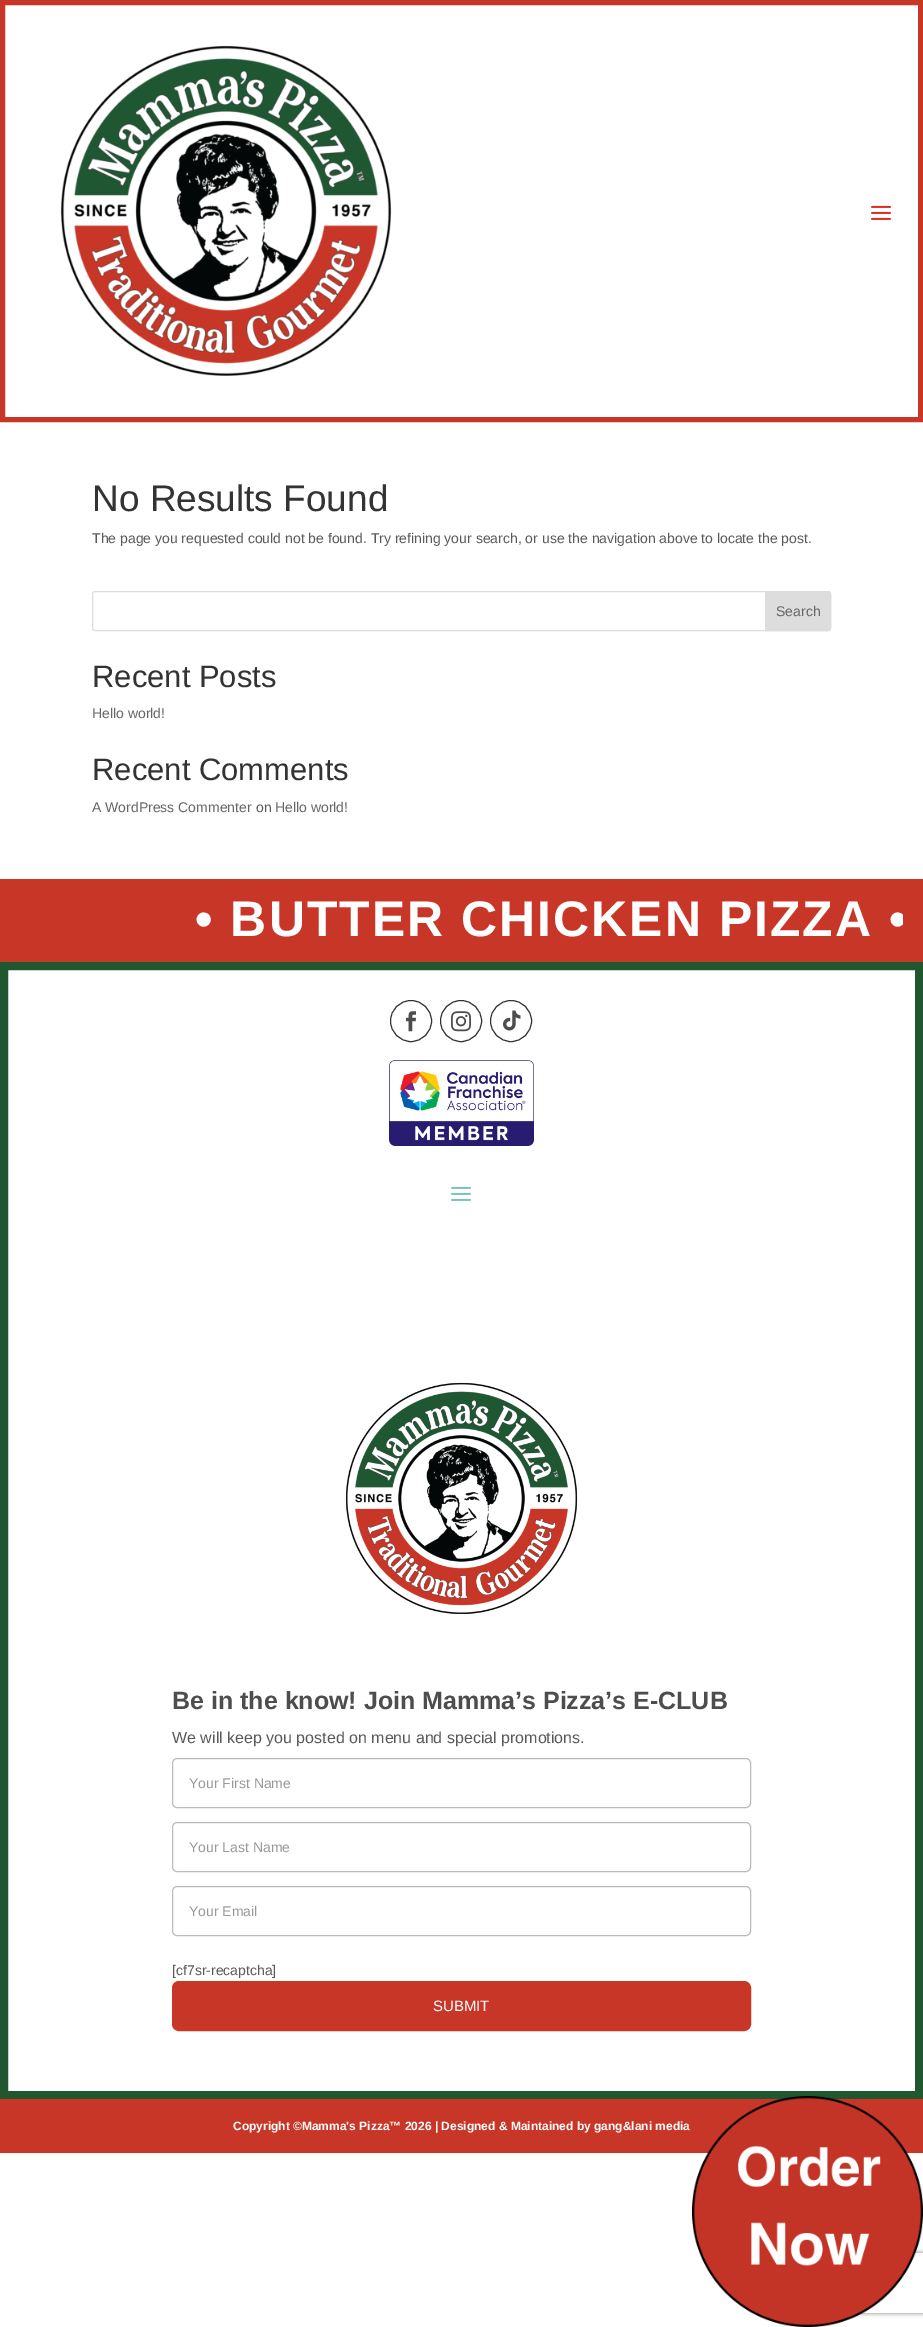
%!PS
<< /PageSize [923 2327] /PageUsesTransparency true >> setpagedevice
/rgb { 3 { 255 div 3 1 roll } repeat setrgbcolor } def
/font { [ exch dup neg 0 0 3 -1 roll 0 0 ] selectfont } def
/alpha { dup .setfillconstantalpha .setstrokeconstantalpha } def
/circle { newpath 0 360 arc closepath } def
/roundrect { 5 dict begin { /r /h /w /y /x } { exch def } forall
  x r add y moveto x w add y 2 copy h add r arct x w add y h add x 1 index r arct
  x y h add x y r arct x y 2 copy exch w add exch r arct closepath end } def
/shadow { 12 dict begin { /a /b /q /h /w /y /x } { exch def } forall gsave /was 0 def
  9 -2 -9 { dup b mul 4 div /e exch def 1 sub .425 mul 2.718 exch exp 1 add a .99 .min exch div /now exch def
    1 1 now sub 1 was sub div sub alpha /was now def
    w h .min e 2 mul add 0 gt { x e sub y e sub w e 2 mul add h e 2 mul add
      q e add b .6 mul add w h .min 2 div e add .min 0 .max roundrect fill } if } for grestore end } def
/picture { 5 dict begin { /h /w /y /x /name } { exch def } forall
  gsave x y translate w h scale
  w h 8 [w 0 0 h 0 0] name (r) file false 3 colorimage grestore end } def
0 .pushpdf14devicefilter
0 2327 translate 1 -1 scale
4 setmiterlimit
255 255 255 rgb
0 0 923 2327 rectfill
200 54 40 rgb
5 setlinewidth
2.5 2.5 918 417 rectstroke
(img/1.rgb) 60 45 332 331 picture
(img/2.rgb) 871 205 20 15 picture
32 87 49 rgb
8 setlinewidth
4 966 915 1129 rectstroke
200 54 40 rgb
0 2099 923 54 rectfill
gsave
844 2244 moveto 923 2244 lineto 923 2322 lineto 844 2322 lineto closepath 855 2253 moveto 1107 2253 lineto 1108 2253 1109 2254 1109 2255 curveto 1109 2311 lineto 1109 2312 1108 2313 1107 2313 curveto 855 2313 lineto 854 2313 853 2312 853 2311 curveto 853 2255 lineto 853 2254 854 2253 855 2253 curveto closepath eoclip newpath
128 128 128 rgb
853 2253 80 60 2 2.5 1 shadow
grestore
(img/3.rgb) 692 2096 231 231 picture
221 221 221 rgb
1 setlinewidth
92.5 591.5 738 39 2.5 roundrect stroke
765.5 591.5 moveto 828 591.5 lineto 829.5 591.5 830.5 592.5 830.5 594 curveto 830.5 628 lineto 830.5 629.5 829.5 630.5 828 630.5 curveto 765.5 630.5 lineto closepath gsave fill grestore
stroke
200 54 40 rgb
0 879 923 83 rectfill
51 51 51 rgb
411 1021 20.5 circle stroke
(img/4.rgb) 406 1011 10 21 picture
461 1021 20.5 circle stroke
(img/5.rgb) 451 1011 20 21 picture
511 1021 20.5 circle stroke
(img/6.rgb) 503 1010 18 21 picture
(img/7.rgb) 389 1060 145 86 picture
(img/8.rgb) 451 1186 20 15 picture
(img/9.rgb) 345 1382 233 232 picture
187 187 187 rgb
172.5 1758.5 578 49 4.5 roundrect stroke
172.5 1822.5 578 49 4.5 roundrect stroke
172.5 1886.5 578 49 4.5 roundrect stroke
200 54 40 rgb
173 1982 577 48 6 roundrect gsave fill grestore
2 setlinewidth
stroke
/LiberationSans-Regular 37 font
51 51 51 rgb
92 511 moveto (No Results Found) show
/LiberationSans-Regular 14 font
89 89 89 rgb
92 543 moveto (The page you requested could not be found. Try refining your search, or use the navigation above to locate the post.) show
102 102 102 rgb
776 616 moveto (Search) show
/LiberationSans-Regular 31 font
51 51 51 rgb
92 687 moveto (Recent Posts) show
/LiberationSans-Regular 14 font
102 102 102 rgb
92 718 moveto (Hello world!) show
/LiberationSans-Regular 31 font
51 51 51 rgb
92 780 moveto (Recent Comments) show
/LiberationSans-Regular 14 font
102 102 102 rgb
92 812 moveto (A WordPress Commenter) show
89 89 89 rgb
256 812 moveto (on) show
102 102 102 rgb
275 812 moveto (Hello world!) show
gsave
20 899 883 40 rectclip
/LiberationSans-Bold 50 font
255 255 255 rgb
195 936 moveto 2 0 (• BUTTER CHICKEN PIZZA •) ashow
grestore
/LiberationSans-Bold 25 font
77 77 77 rgb
172 1709 moveto (Be in the know! Join Mamma’s Pizza’s E-CLUB) show
/LiberationSans-Regular 16 font
89 89 89 rgb
172 1743 moveto (We will keep you posted on menu and special promotions.) show
/LiberationSans-Regular 14 font
153 153 153 rgb
[
  [(Your First Name) 189 1788]
  [(Your Last Name) 189 1852]
  [(Your Email) 189 1916]
] { aload pop moveto show } forall
89 89 89 rgb
172 1975 moveto ([cf7sr-recaptcha]) show
/LiberationSans-Regular 15 font
255 255 255 rgb
433 2011 moveto (SUBMIT) show
/LiberationSans-Bold 12 font
233 2130 moveto (Copyright ©Mamma's Pizza™ 2026 | Designed & Maintained by gang&lani media) show
.poppdf14devicefilter showpage
